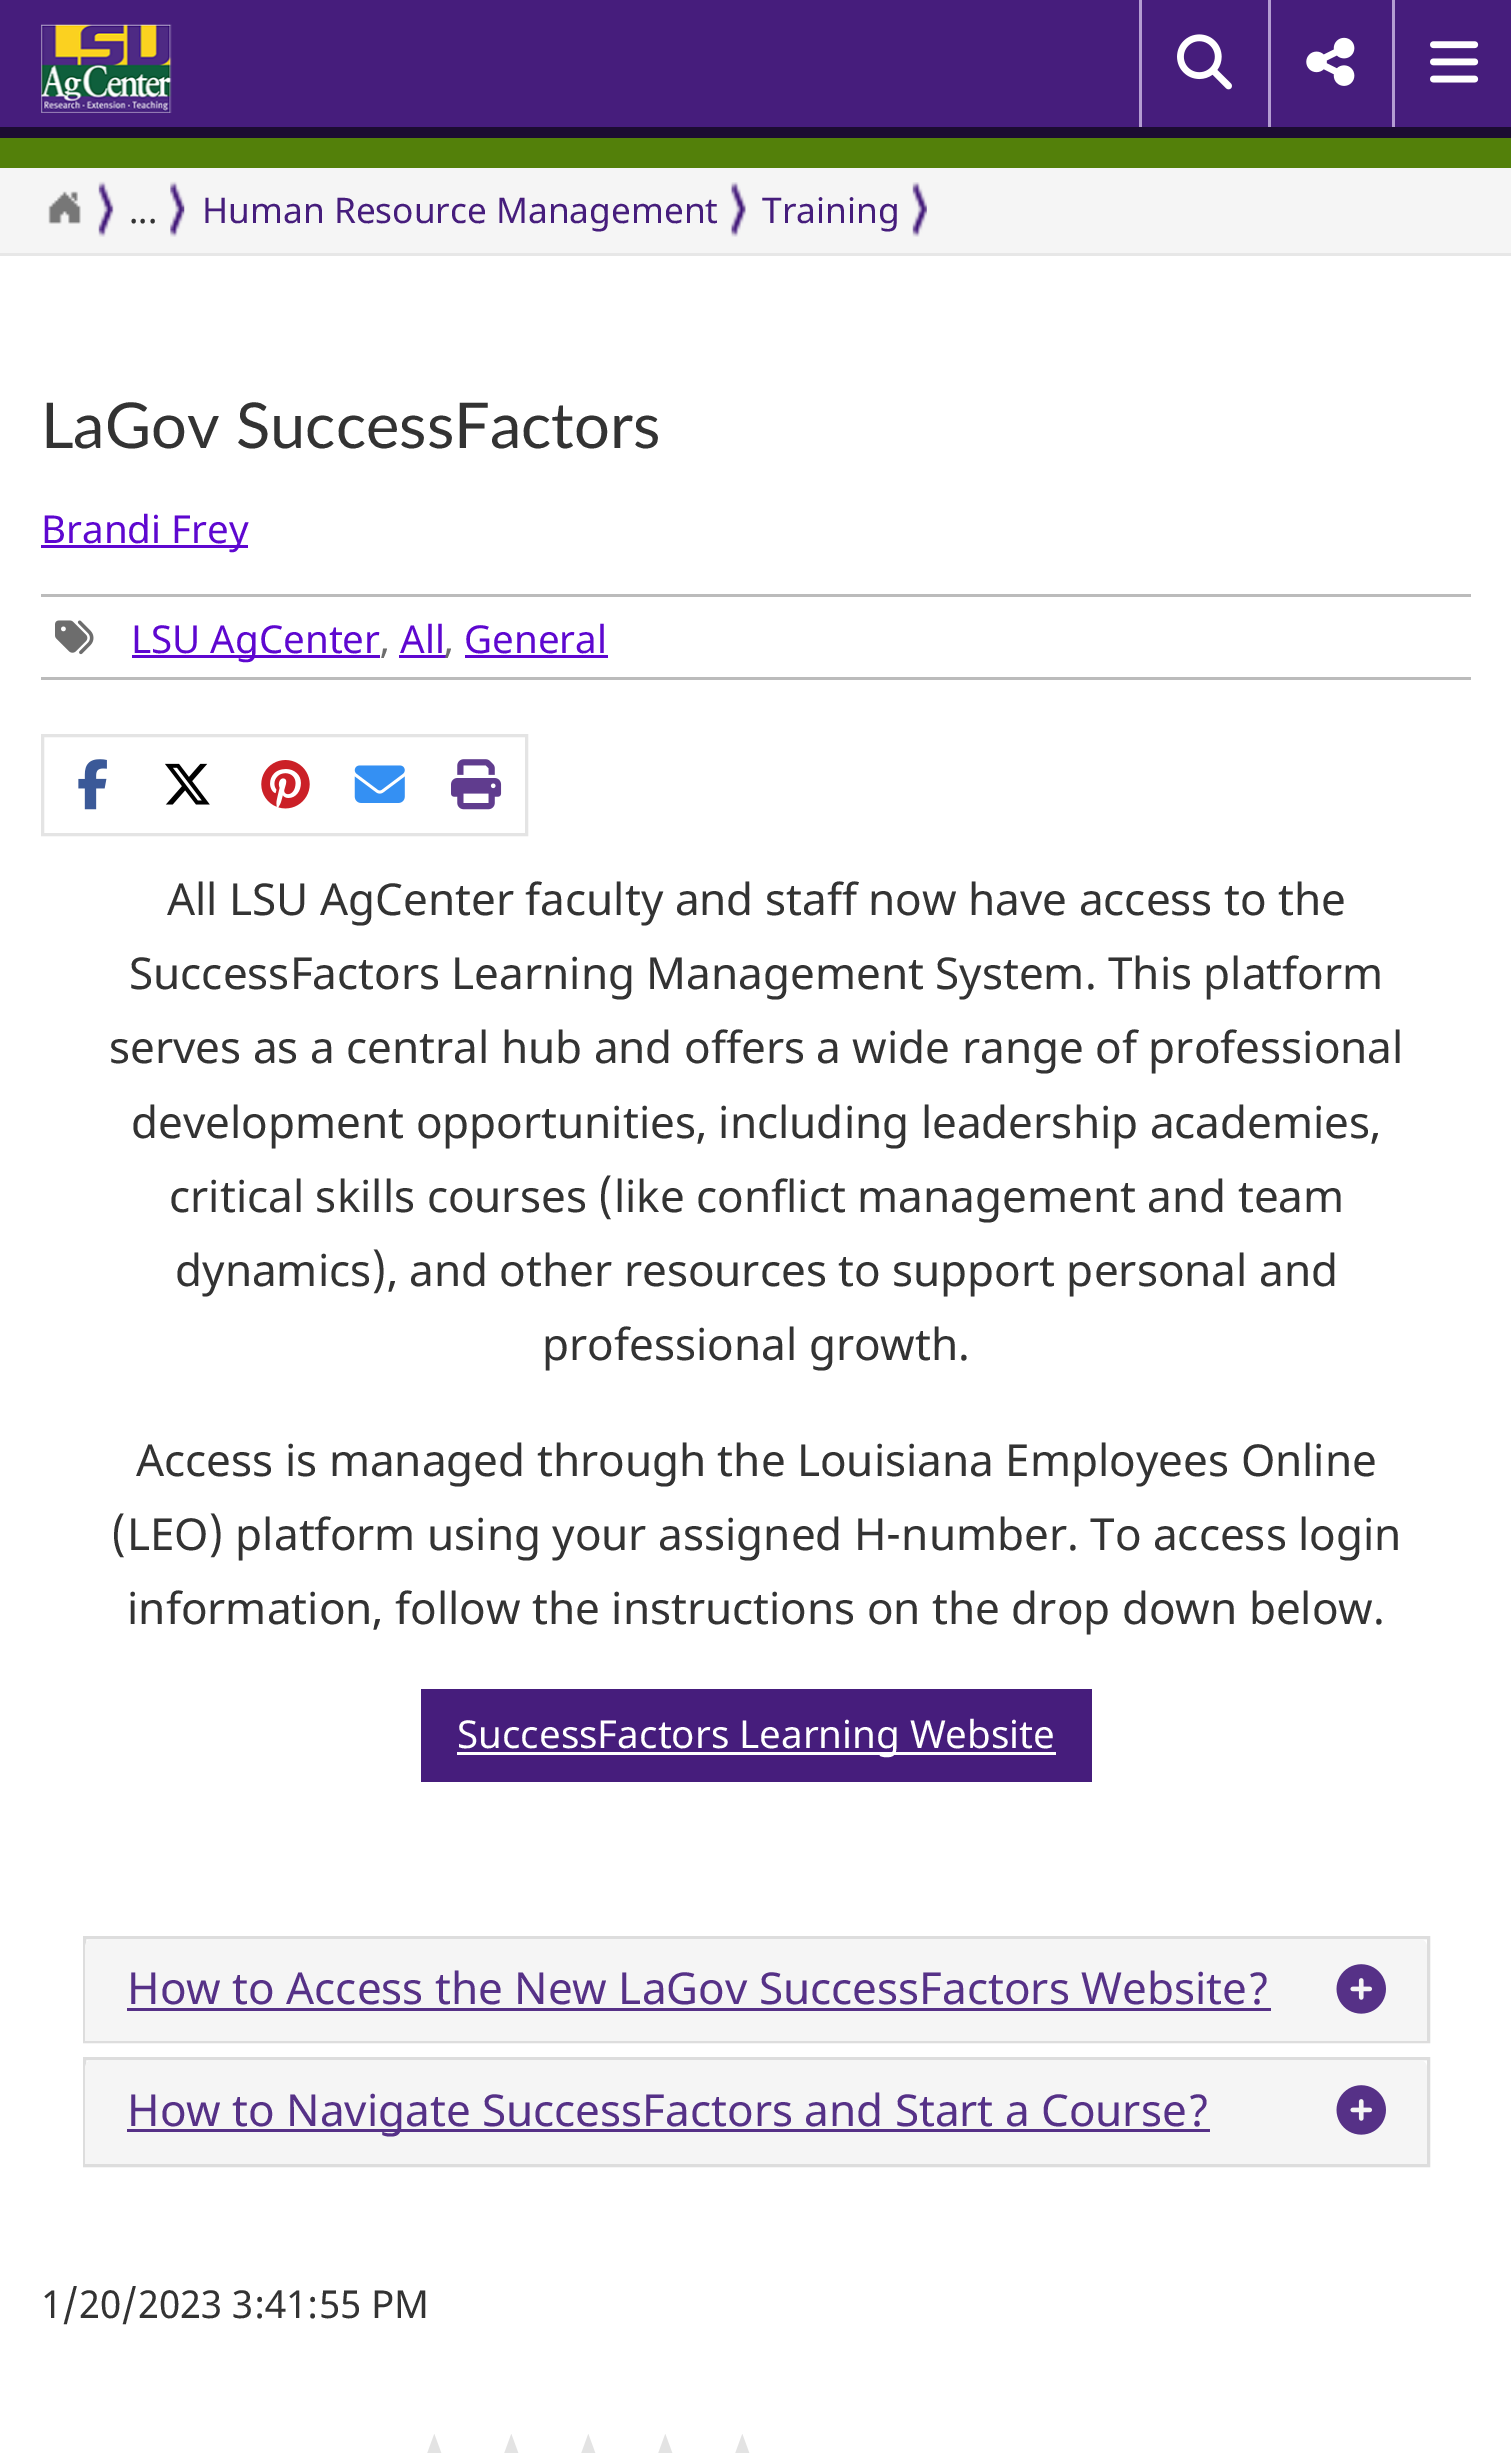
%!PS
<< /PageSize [1511 2453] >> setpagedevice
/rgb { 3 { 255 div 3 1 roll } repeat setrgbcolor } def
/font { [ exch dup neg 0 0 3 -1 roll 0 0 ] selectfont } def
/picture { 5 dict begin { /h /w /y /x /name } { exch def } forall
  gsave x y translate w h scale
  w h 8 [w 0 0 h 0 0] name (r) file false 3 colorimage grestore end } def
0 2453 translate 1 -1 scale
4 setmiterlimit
255 255 255 rgb
0 0 1511 2453 rectfill
[
  [0 0 1511 127 70 29 124]
  [0 253 1511 3 231 231 231]
  [0 127 1511 11 28 12 50]
] { aload pop rgb rectfill } forall
(img/1.rgb) 41 24 131 89 picture
180 157 210 rgb
1139 0 3 127 rectfill
(img/2.rgb) 1177 34 55 56 picture
1268 0 3 127 rectfill
(img/3.rgb) 1306 37 49 49 picture
1392 0 3 127 rectfill
(img/4.rgb) 1430 41 49 42 picture
83 128 10 rgb
0 138 1511 30 rectfill
245 245 245 rgb
0 168 1511 85 rectfill
(img/5.rgb) 98 181 16 56 picture
(img/6.rgb) 48 191 33 33 picture
(img/7.rgb) 170 181 15 56 picture
(img/8.rgb) 730 182 16 55 picture
(img/9.rgb) 912 182 15 55 picture
[
  [41 545 207 3 94 7 208]
  [41 594 1430 3 187 187 187]
  [41 677 1430 3 187 187 187]
] { aload pop rgb rectfill } forall
(img/10.rgb) 55 620 39 35 picture
[
  [132 655 248 3 94 7 208]
  [399 655 47 3 94 7 208]
  [465 655 143 3 94 7 208]
] { aload pop rgb rectfill } forall
228 228 228 rgb
3 setlinewidth
42.5 735.5 484 99 rectstroke
(img/11.rgb) 78 759 29 51 picture
(img/12.rgb) 165 763 45 42 picture
(img/13.rgb) 261 760 49 49 picture
(img/14.rgb) 354 765 51 38 picture
(img/15.rgb) 451 759 51 51 picture
70 29 124 rgb
421 1689 671 93 rectfill
255 255 255 rgb
457 1752 599 3 rectfill
221 221 221 rgb
84.5 1937.5 1344 104 rectstroke
245 245 245 rgb
93 1939 moveto 1419 1939 lineto 1423.5 1939 1427 1942.5 1427 1947 curveto 1427 2041 lineto 85 2041 lineto 85 1947 lineto 85 1942.5 88.5 1939 93 1939 curveto closepath fill
86 49 135 rgb
127 2008 1144 3 rectfill
(img/16.rgb) 1336 1964 50 50 picture
221 221 221 rgb
84.5 2058.5 1344 107 rectstroke
245 245 245 rgb
93 2060 moveto 1419 2060 lineto 1423.5 2060 1427 2063.5 1427 2068 curveto 1427 2164 lineto 85 2164 lineto 85 2068 lineto 85 2063.5 88.5 2060 93 2060 curveto closepath fill
86 49 135 rgb
127 2129 1083 3 rectfill
(img/16.rgb) 1336 2085 50 50 picture
(img/17.rgb) 427 2434 323 19 picture
/NotoSans-Regular 35.25 font
51 51 51 rgb
129 223 moveto (...) show
70 29 124 rgb
202 223 moveto (Human Resource Management) show
762 223 moveto (Training) show
/Lato-Regular 63.25 font
51 51 51 rgb
41 448 moveto (LaGov SuccessFactors) show
/NotoSans-Regular 38.5 font
94 7 208 rgb
41 543 moveto (Brandi Frey) show
131 653 moveto (LSU AgCenter) show
109 109 109 rgb
380 653 moveto (,) show
94 7 208 rgb
400 653 moveto (All) show
109 109 109 rgb
444 653 moveto (,) show
94 7 208 rgb
464 653 moveto (General) show
/NotoSans-Regular 44 font
51 51 51 rgb
[
  [(All LSU AgCenter faculty and staff now have access to the) 167 915]
  [(SuccessFactors Learning Management System. This platform) 129 989]
  [(serves as a central hub and offers a wide range of professional) 109 1063]
  [(development opportunities, including leadership academies,) 131 1138]
  [(critical skills courses \(like conflict management and team) 169 1212]
  [(dynamics\), and other resources to support personal and) 175 1286]
  [(professional growth.) 542 1360]
  [(Access is managed through the Louisiana Employees Online) 136 1476]
  [(\(LEO\) platform using your assigned H-number. To access login) 111 1550]
  [(information, follow the instructions on the drop down below.) 127 1624]
] { aload pop moveto show } forall
/NotoSans-Regular 38.5 font
255 255 255 rgb
457 1748 moveto (SuccessFactors Learning Website) show
/NotoSans-Regular 44 font
86 49 135 rgb
127 2004 moveto (How to Access the New LaGov SuccessFactors Website?) show
127 2126 moveto (How to Navigate SuccessFactors and Start a Course?) show
/NotoSans-Regular 38.5 font
51 51 51 rgb
41 2318 moveto (1/20/2023 3:41:55 PM) show
showpage
